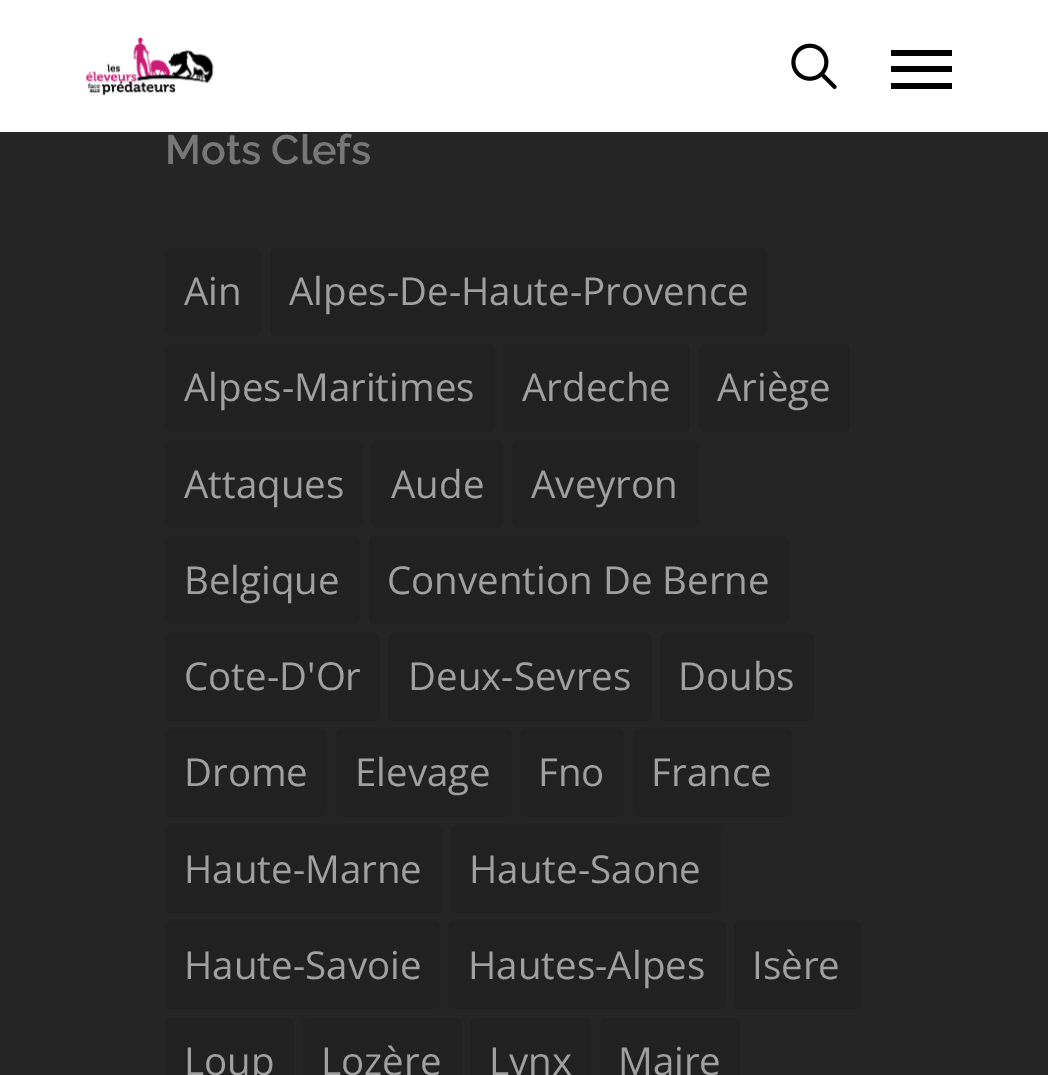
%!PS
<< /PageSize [1048 1075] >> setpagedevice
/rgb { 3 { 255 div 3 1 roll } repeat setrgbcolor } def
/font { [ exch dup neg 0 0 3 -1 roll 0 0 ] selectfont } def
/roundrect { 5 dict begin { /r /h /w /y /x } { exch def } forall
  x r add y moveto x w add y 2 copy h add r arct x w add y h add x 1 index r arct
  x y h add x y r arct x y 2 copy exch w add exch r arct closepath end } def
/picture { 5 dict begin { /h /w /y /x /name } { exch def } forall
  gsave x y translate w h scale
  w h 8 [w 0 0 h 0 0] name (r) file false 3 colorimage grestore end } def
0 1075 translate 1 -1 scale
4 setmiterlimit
37 37 37 rgb
0 0 1048 1075 rectfill
255 255 255 rgb
0 0 1048 132 rectfill
(img/1.rgb) 85 37 129 59 picture
(img/2.rgb) 791 43 46 46 picture
[
  [891 50 61 6 0 0 0]
  [891 83 61 6 0 0 0]
  [891 66 61 6 0 0 0]
] { aload pop rgb rectfill } forall
33 33 33 rgb
165 248 96 88 6 roundrect fill
270 248 497 88 6 roundrect fill
165 344 330 88 6 roundrect fill
503 344 187 88 6 roundrect fill
699 344 151 88 6 roundrect fill
165 440 198 88 6 roundrect fill
371 440 132 88 6 roundrect fill
512 440 187 88 6 roundrect fill
165 536 195 88 6 roundrect fill
369 536 420 88 6 roundrect fill
165 633 215 88 6 roundrect fill
388 633 264 88 6 roundrect fill
660 633 154 88 6 roundrect fill
165 729 162 88 6 roundrect fill
336 729 176 88 6 roundrect fill
520 729 104 88 6 roundrect fill
633 729 159 88 6 roundrect fill
165 825 278 88 6 roundrect fill
451 825 270 88 6 roundrect fill
165 921 275 88 6 roundrect fill
448 921 278 88 6 roundrect fill
734 921 127 88 6 roundrect fill
165 1018 129 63 6 roundrect fill
303 1018 159 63 6 roundrect fill
470 1018 121 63 6 roundrect fill
600 1018 140 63 6 roundrect fill
/Raleway-SemiBold 41.25 font
119 119 119 rgb
165 164 moveto (Mots Clefs) show
/OpenSans-Regular 38.5 font
160 160 160 rgb
[
  [(Ain) 184 305]
  [(Alpes-De-Haute-Provence) 289 305]
  [(Alpes-Maritimes) 184 401]
  [(Ardeche) 522 401]
  [(Ariège) 717 401]
  [(Attaques) 184 498]
  [(Aude) 391 498]
  [(Aveyron) 531 498]
  [(Belgique) 184 594]
  [(Convention De Berne) 387 594]
  [(Cote-D'Or) 184 690]
  [(Deux-Sevres) 408 690]
  [(Doubs) 678 690]
  [(Drome) 184 786]
  [(Elevage) 355 786]
  [(Fno) 538 786]
  [(France) 651 786]
  [(Haute-Marne) 184 883]
  [(Haute-Saone) 469 883]
  [(Haute-Savoie) 184 979]
  [(Hautes-Alpes) 468 979]
  [(Isère) 752 979]
  [(Loup) 184 1075]
  [(Lozère) 321 1075]
  [(Lynx) 489 1075]
  [(Maire) 618 1075]
] { aload pop moveto show } forall
showpage
